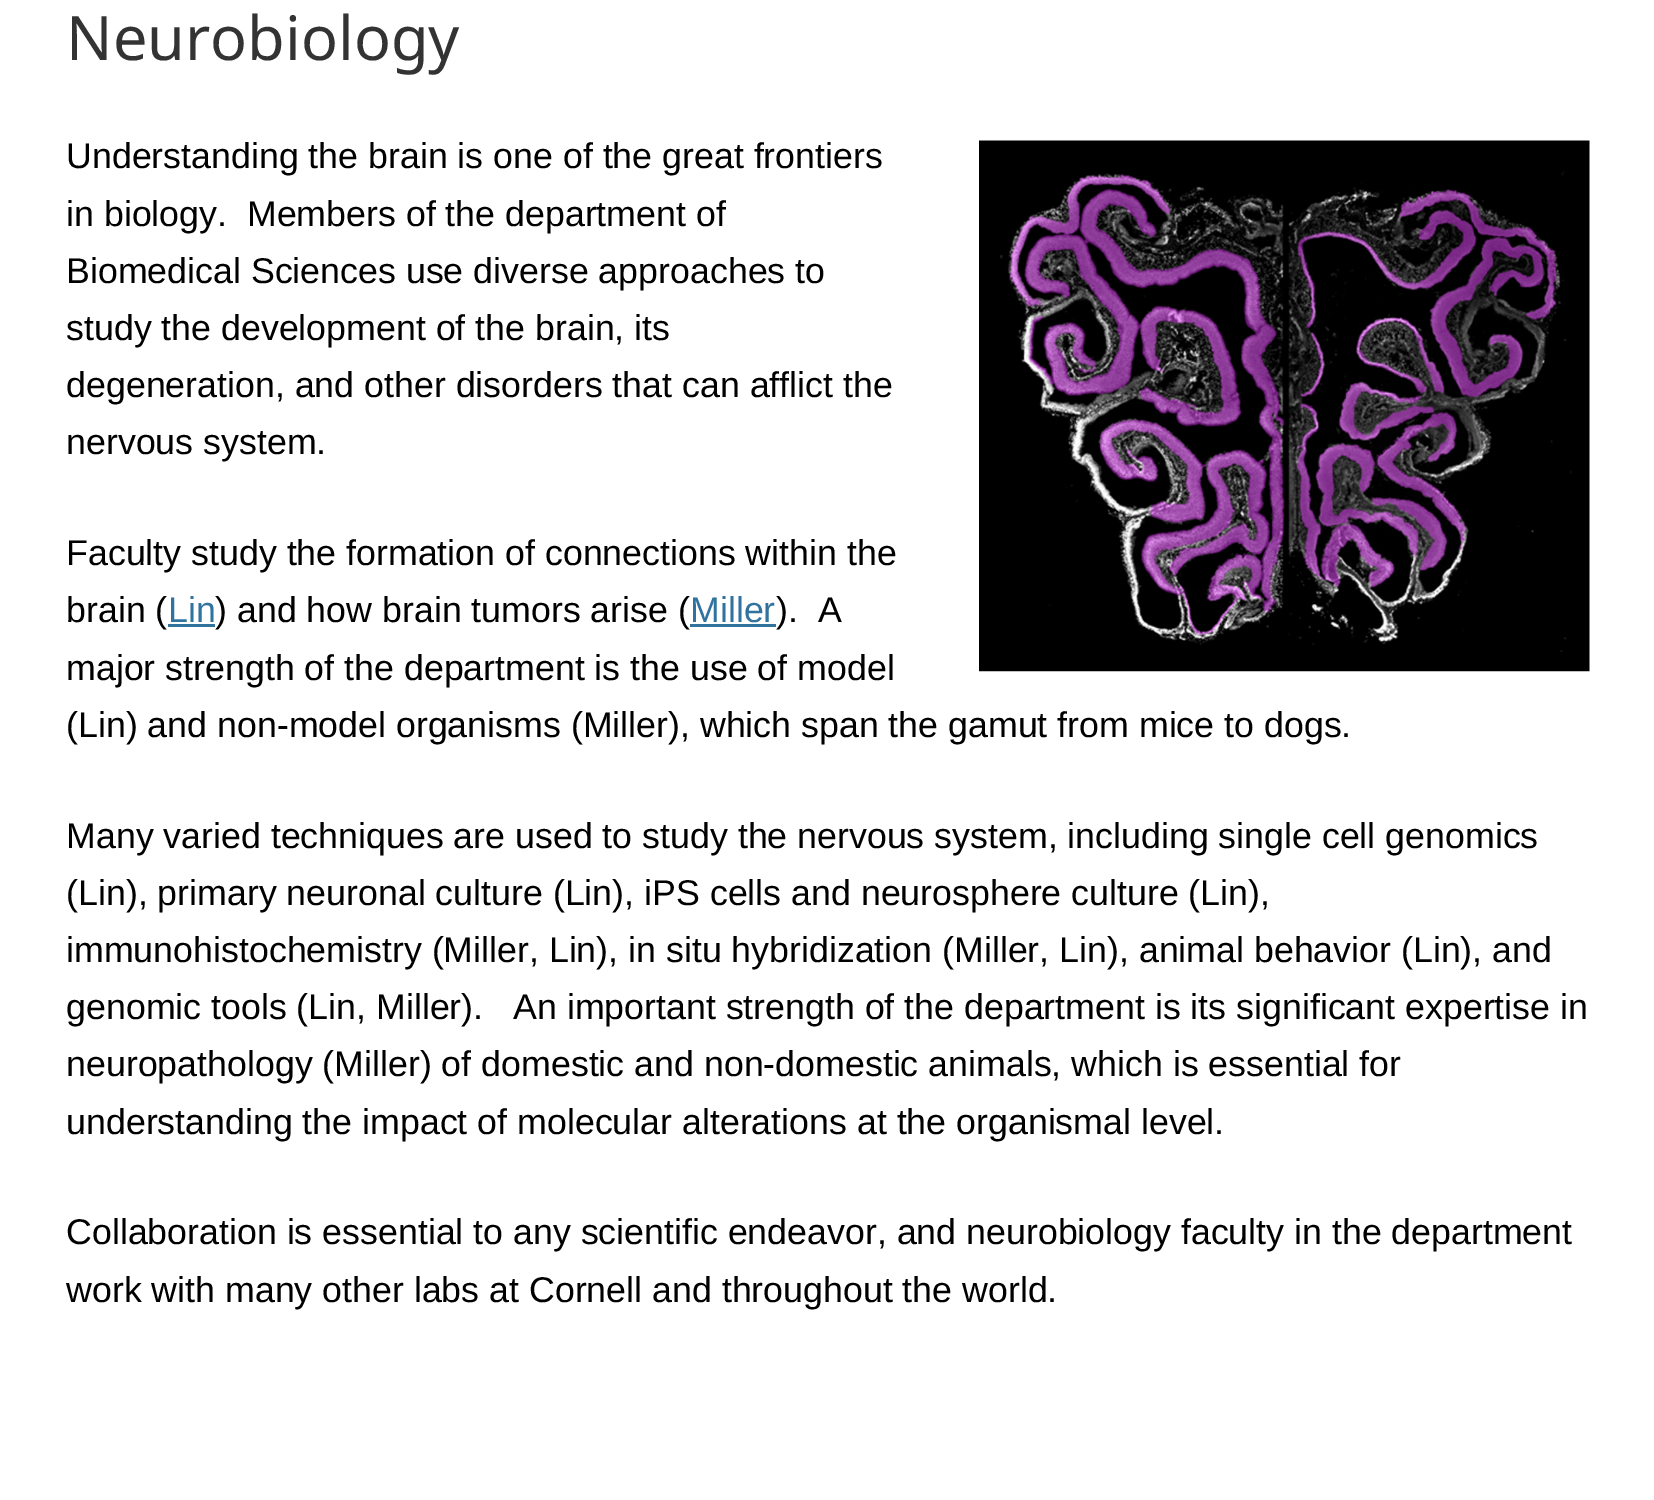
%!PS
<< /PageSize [1654 1500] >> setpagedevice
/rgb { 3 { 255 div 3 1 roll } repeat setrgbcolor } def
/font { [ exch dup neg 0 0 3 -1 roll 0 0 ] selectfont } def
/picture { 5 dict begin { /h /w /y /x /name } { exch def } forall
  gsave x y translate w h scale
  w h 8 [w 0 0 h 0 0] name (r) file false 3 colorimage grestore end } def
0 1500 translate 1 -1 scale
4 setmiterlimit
255 255 255 rgb
0 0 1654 1500 rectfill
(img/1.rgb) 979 140 611 532 picture
47 115 158 rgb
168 624 47 3 rectfill
/NotoSans-Regular 61.25 font
51 51 51 rgb
66 60 moveto (Neurobiology) show
/LiberationSans-Regular 35.75 font
0 0 0 rgb
[
  [(Understanding the brain is one of the great frontiers) 66 168]
  [(in biology.  Members of the department of) 66 226]
  [(Biomedical Sciences use diverse approaches to) 66 283]
  [(study the development of the brain, its) 66 340]
  [(degeneration, and other disorders that can afflict the) 66 397]
  [(nervous system.) 66 454]
  [(Faculty study the formation of connections within the) 66 565]
  [(brain \() 66 622]
] { aload pop moveto show } forall
47 115 158 rgb
168 622 moveto (Lin) show
0 0 0 rgb
215 622 moveto (\) and how brain tumors arise \() show
47 115 158 rgb
690 622 moveto (Miller) show
690 624 86 3 rectfill
0 0 0 rgb
[
  [(\).  A) 776 622]
  [(major strength of the department is the use of model) 66 680]
  [(\(Lin\) and non-model organisms \(Miller\), which span the gamut from mice to dogs.) 66 737]
  [(Many varied techniques are used to study the nervous system, including single cell genomics) 66 848]
  [(\(Lin\), primary neuronal culture \(Lin\), iPS cells and neurosphere culture \(Lin\),) 66 905]
  [(immunohistochemistry \(Miller, Lin\), in situ hybridization \(Miller, Lin\), animal behavior \(Lin\), and) 66 962]
  [(genomic tools \(Lin, Miller\).   An important strength of the department is its significant expertise in) 66 1019]
  [(neuropathology \(Miller\) of domestic and non-domestic animals, which is essential for) 66 1076]
  [(understanding the impact of molecular alterations at the organismal level.) 66 1134]
  [(Collaboration is essential to any scientific endeavor, and neurobiology faculty in the department) 66 1244]
  [(work with many other labs at Cornell and throughout the world.) 66 1302]
] { aload pop moveto show } forall
showpage
